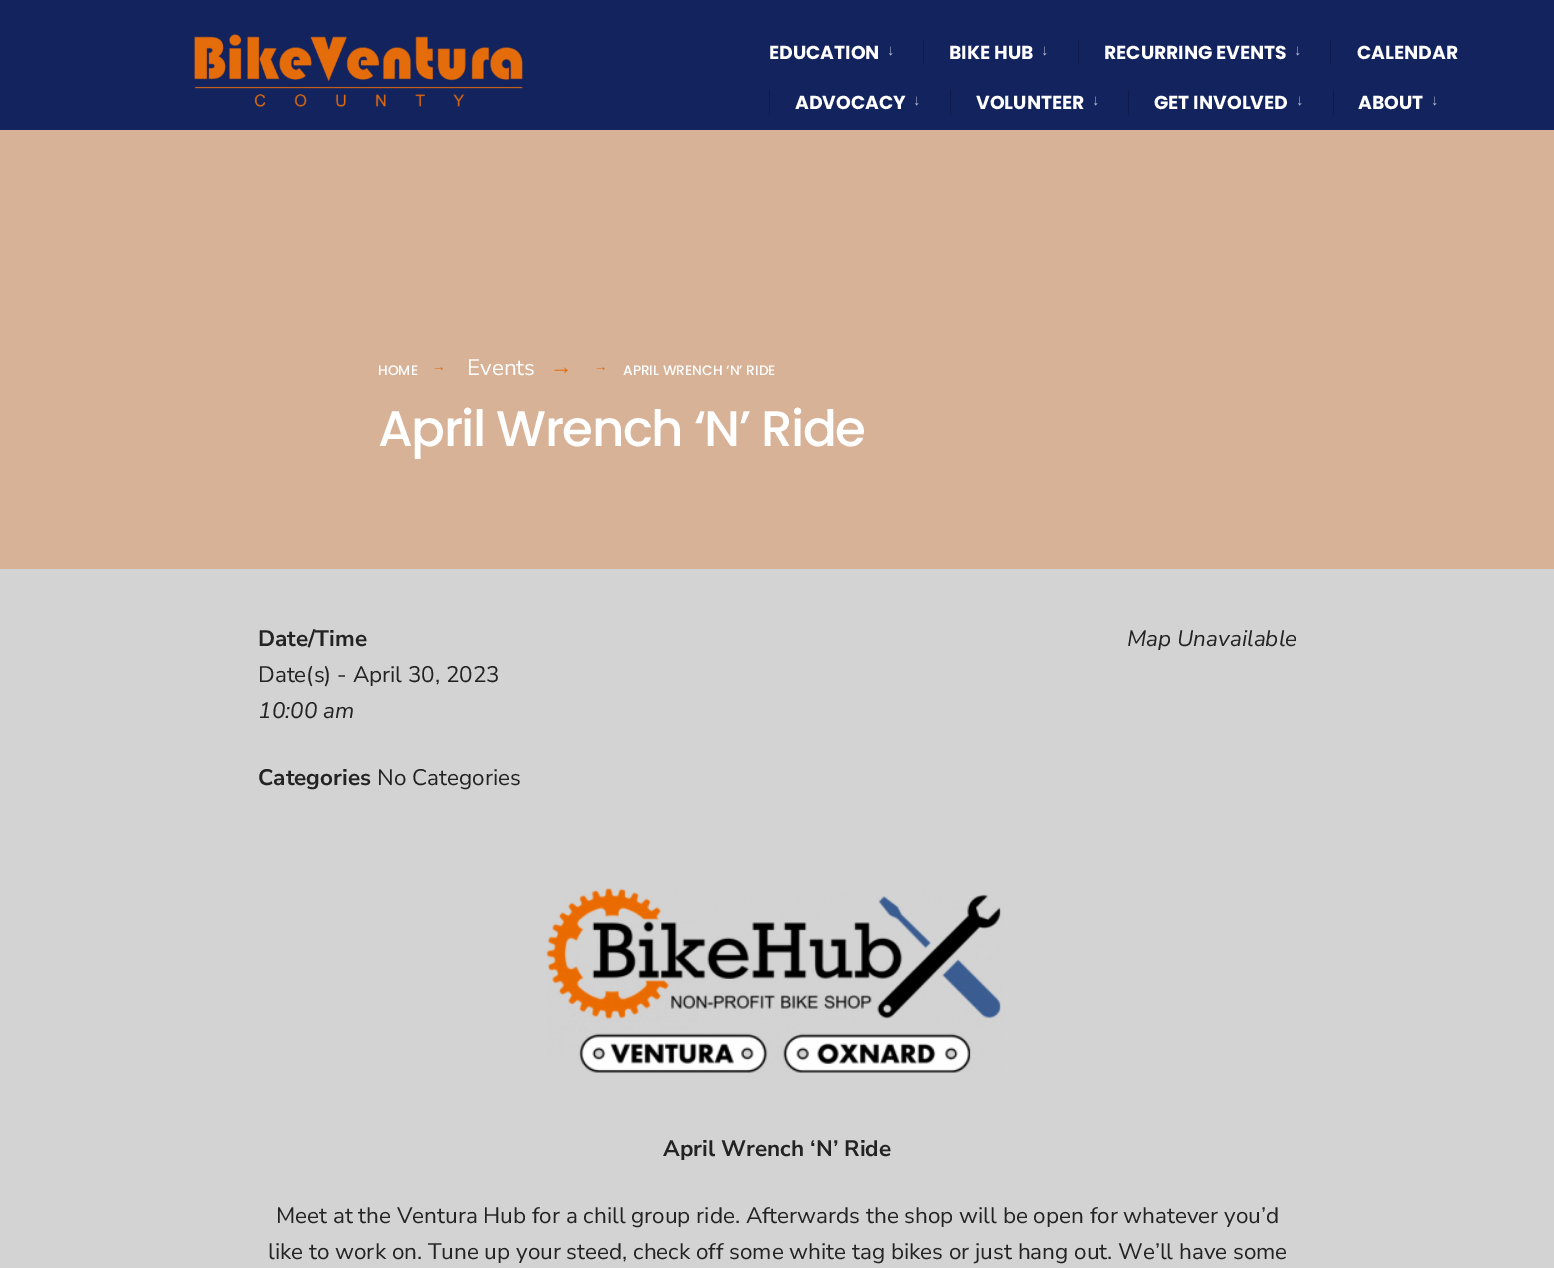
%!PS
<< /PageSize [1554 1268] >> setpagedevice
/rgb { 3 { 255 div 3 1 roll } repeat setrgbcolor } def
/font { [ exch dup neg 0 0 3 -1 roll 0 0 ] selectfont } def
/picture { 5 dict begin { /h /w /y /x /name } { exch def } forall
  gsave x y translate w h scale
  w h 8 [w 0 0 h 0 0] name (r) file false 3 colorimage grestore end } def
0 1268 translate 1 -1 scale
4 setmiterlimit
211 211 211 rgb
0 0 1554 1268 rectfill
19 35 94 rgb
0 0 1554 130 rectfill
(img/1.rgb) 194 34 329 73 picture
[
  [923 40 1 25 15 28 75]
  [1078 40 1 25 15 28 75]
  [1330 40 1 25 15 28 75]
  [769 90 1 25 15 28 75]
  [950 90 1 25 15 28 75]
  [1128 90 1 25 15 28 75]
  [1333 90 1 25 15 28 75]
  [0 130 1554 439 215 178 150]
] { aload pop rgb rectfill } forall
(img/2.rgb) 546 888 456 185 picture
/Poppins-Bold 18.75 font
255 255 255 rgb
769 59 moveto (EDUCATION) show
/LiberationSans-Regular 15 font
184 189 207 rgb
887 55 moveto (↓) show
/Poppins-Bold 18.75 font
255 255 255 rgb
949 59 moveto (BIKE HUB) show
/LiberationSans-Regular 15 font
184 189 207 rgb
1041 55 moveto (↓) show
/Poppins-Bold 18.75 font
255 255 255 rgb
1104 59 moveto (RECURRING EVENTS) show
/LiberationSans-Regular 15 font
184 189 207 rgb
1294 55 moveto (↓) show
/Poppins-Bold 18.75 font
255 255 255 rgb
1357 59 moveto (CALENDAR) show
795 109 moveto (ADVOCACY) show
/LiberationSans-Regular 15 font
184 189 207 rgb
913 105 moveto (↓) show
/Poppins-Bold 18.75 font
255 255 255 rgb
976 109 moveto (VOLUNTEER) show
/LiberationSans-Regular 15 font
184 189 207 rgb
1092 105 moveto (↓) show
/Poppins-Bold 18.75 font
255 255 255 rgb
1154 109 moveto (GET INVOLVED) show
/LiberationSans-Regular 15 font
184 189 207 rgb
1296 105 moveto (↓) show
/Poppins-Bold 18.75 font
255 255 255 rgb
1358 109 moveto (ABOUT) show
/LiberationSans-Regular 15 font
184 189 207 rgb
1431 105 moveto (↓) show
/Poppins-Medium 13.75 font
255 255 255 rgb
378 375 moveto (HOME) show
/LiberationSerif-Regular 13.75 font
228 108 11 rgb
432 371 moveto (→) show
/NunitoSans-Regular 22.5 font
255 255 255 rgb
467 375 moveto (Events) show
/LiberationSerif-Regular 22.5 font
228 108 11 rgb
550 374 moveto (→) show
/LiberationSerif-Regular 13.75 font
594 371 moveto (→) show
/Poppins-Medium 13.75 font
255 255 255 rgb
623 375 moveto (APRIL WRENCH ‘N’ RIDE) show
/Poppins-Medium 50 font
378 446 moveto -1.5 0 (April Wrench ‘N’ Ride) ashow
/NunitoSans-Bold 22.5 font
35 35 35 rgb
258 646 moveto (Date/Time) show
/NunitoSans-Regular 22.5 font
258 682 moveto (Date\(s\) - April 30, 2023) show
/NunitoSans-Italic 22.5 font
258 718 moveto (10:00 am) show
1127 646 moveto (Map Unavailable) show
/NunitoSans-Bold 22.5 font
258 785 moveto (Categories) show
/NunitoSans-Regular 22.5 font
377 785 moveto (No Categories) show
/NunitoSans-Bold 22.5 font
663 1156 moveto (April Wrench ‘N’ Ride) show
/NunitoSans-Regular 22.5 font
276 1223 moveto (Meet at the Ventura Hub for a chill group ride. Afterwards the shop will be open for whatever you’d) show
268 1259 moveto (like to work on. Tune up your steed, check off some white tag bikes or just hang out. We’ll have some) show
showpage
